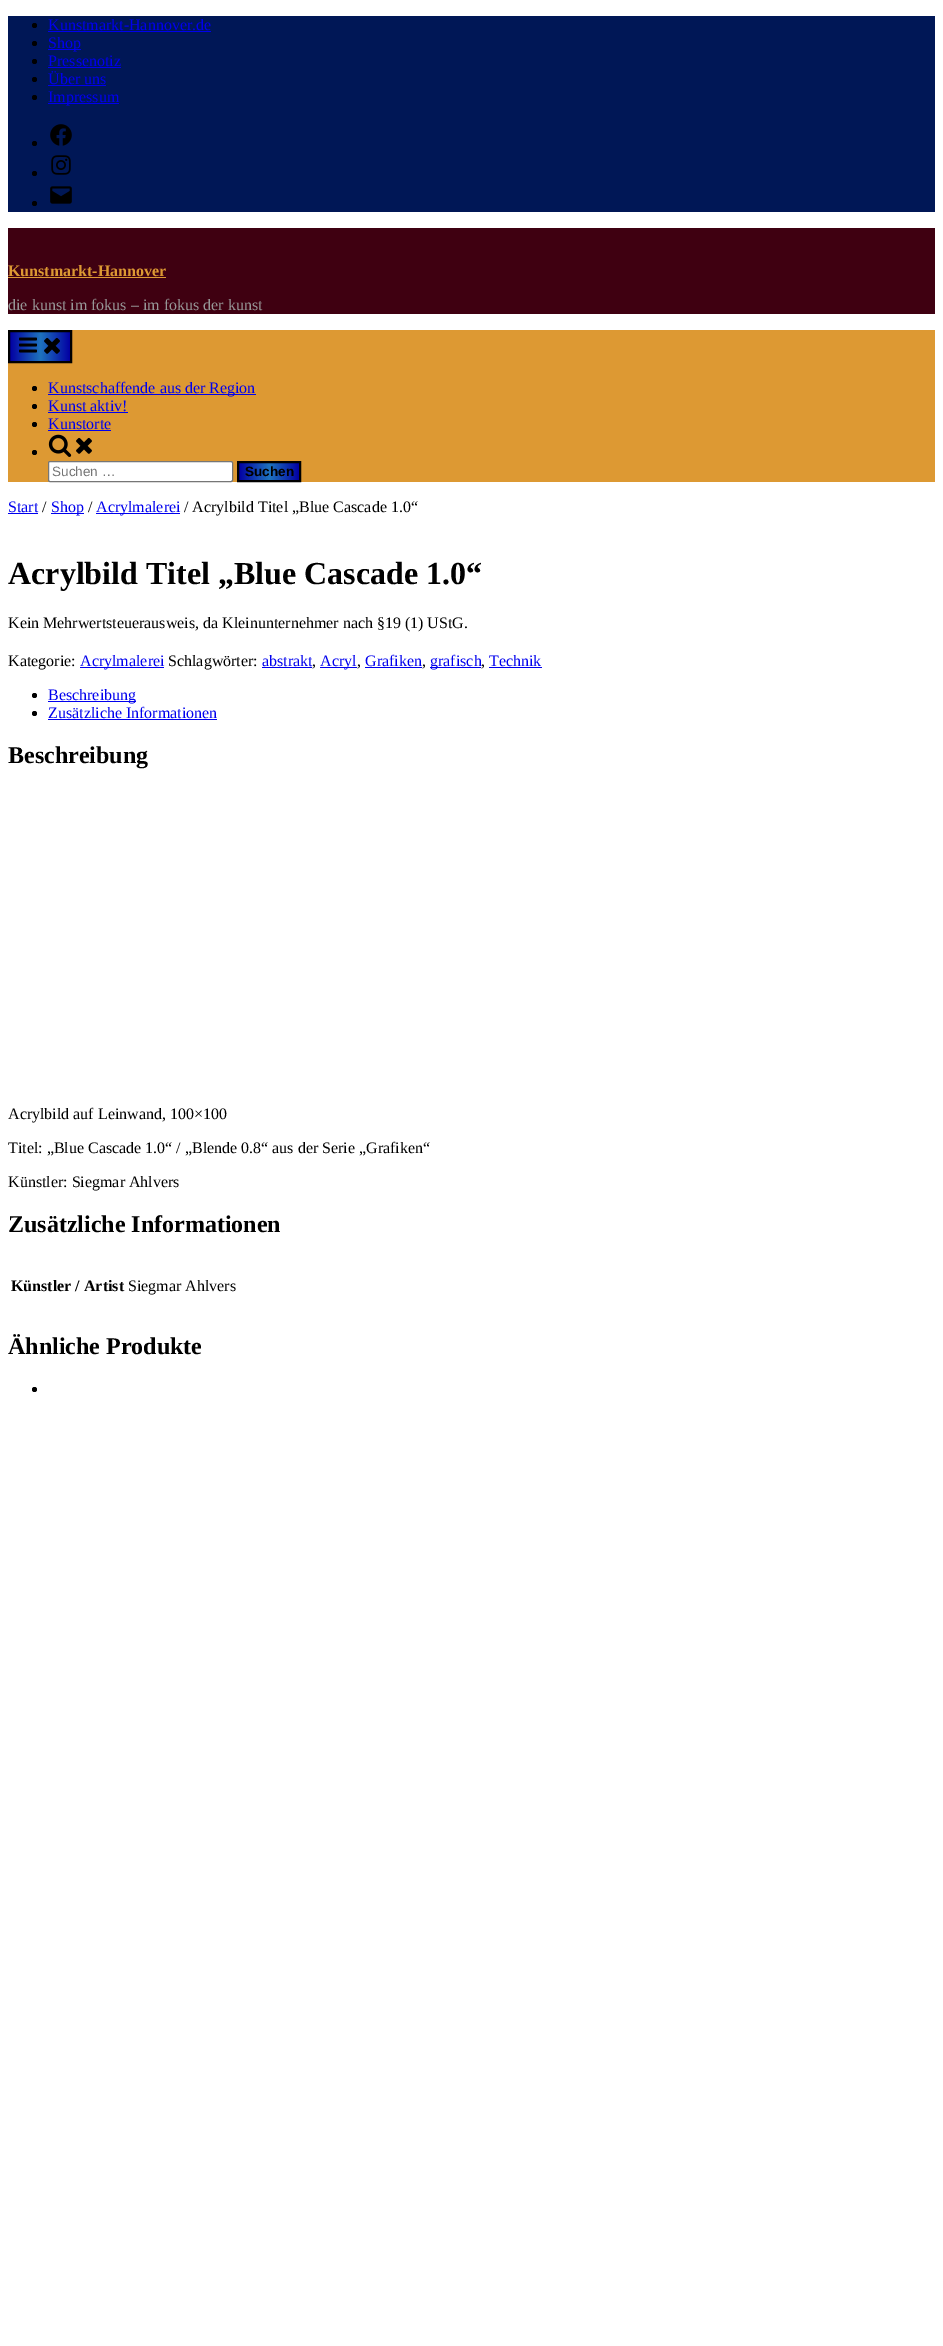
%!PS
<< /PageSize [943 2346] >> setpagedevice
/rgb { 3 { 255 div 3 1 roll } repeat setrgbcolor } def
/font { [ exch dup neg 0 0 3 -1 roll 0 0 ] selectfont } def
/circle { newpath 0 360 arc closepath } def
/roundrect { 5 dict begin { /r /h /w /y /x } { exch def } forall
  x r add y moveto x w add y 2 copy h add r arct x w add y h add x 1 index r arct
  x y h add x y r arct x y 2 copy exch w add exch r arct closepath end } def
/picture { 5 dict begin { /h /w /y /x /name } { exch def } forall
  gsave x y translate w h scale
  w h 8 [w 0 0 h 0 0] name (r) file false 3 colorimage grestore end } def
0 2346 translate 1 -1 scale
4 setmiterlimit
255 255 255 rgb
0 0 943 2346 rectfill
0 23 86 rgb
8 16 927 196 rectfill
0 0 0 rgb
34.5 25.5 2.5 circle fill
0 0 238 rgb
48 31 163 1 rectfill
0 0 0 rgb
34.5 43.5 2.5 circle fill
0 0 238 rgb
48 49 33 1 rectfill
0 0 0 rgb
34.5 61.5 2.5 circle fill
0 0 238 rgb
48 67 73 1 rectfill
0 0 0 rgb
34.5 79.5 2.5 circle fill
0 0 238 rgb
48 85 58 1 rectfill
0 0 0 rgb
34.5 97.5 2.5 circle fill
0 0 238 rgb
48 103 71 1 rectfill
0 0 0 rgb
34.5 143.5 2.5 circle fill
(img/1.rgb) 50 124 22 22 picture
34.5 173.5 2.5 circle fill
(img/2.rgb) 51 155 20 20 picture
34.5 203.5 2.5 circle fill
(img/3.rgb) 50 186 22 18 picture
[
  [8 228 927 86 63 0 17]
  [8 277 158 1 221 153 51]
  [8 330 927 152 221 153 51]
] { aload pop rgb rectfill } forall
gsave 10 332 moveto 70 332 lineto 70 361 lineto 10 361 lineto closepath clip newpath
<< /ShadingType 2 /ColorSpace /DeviceRGB /Coords [10 347 70 347] /Extend [true true] /Function << /FunctionType 3 /Domain [0 1] /Functions [<< /FunctionType 2 /Domain [0 1] /C0 [0.008 0 0.639] /C1 [0.118 0.451 0.745] /N 1 >> << /FunctionType 2 /Domain [0 1] /C0 [0.118 0.451 0.745] /C1 [0.008 0 0.639] /N 1 >>] /Bounds [0.51] /Encode [0 1 0 1] >> >> shfill grestore
0 0 0 rgb
2 setlinewidth
9 331 62 31 rectstroke
(img/4.rgb) 19 337 18 16 picture
(img/5.rgb) 44 337 16 17 picture
34.5 388.5 2.5 circle fill
0 0 238 rgb
48 394 208 1 rectfill
0 0 0 rgb
34.5 406.5 2.5 circle fill
0 0 238 rgb
48 412 80 1 rectfill
0 0 0 rgb
34.5 424.5 2.5 circle fill
0 0 238 rgb
48 430 63 1 rectfill
0 0 0 rgb
34.5 452.5 2.5 circle fill
(img/6.rgb) 48 434 24 23 picture
(img/7.rgb) 76 437 16 17 picture
255 255 255 rgb
48.5 461.5 184 20 1.5 roundrect gsave fill grestore
118 118 118 rgb
1 setlinewidth
stroke
gsave 239 463 moveto 299 463 lineto 299 480 lineto 239 480 lineto closepath clip newpath
<< /ShadingType 2 /ColorSpace /DeviceRGB /Coords [239 472 299 472] /Extend [true true] /Function << /FunctionType 3 /Domain [0 1] /Functions [<< /FunctionType 2 /Domain [0 1] /C0 [0.008 0 0.639] /C1 [0.118 0.451 0.745] /N 1 >> << /FunctionType 2 /Domain [0 1] /C0 [0.118 0.451 0.745] /C1 [0.008 0 0.639] /N 1 >>] /Bounds [0.51] /Encode [0 1 0 1] >> >> shfill grestore
0 0 0 rgb
2 setlinewidth
238 462 62 19 rectstroke
[
  [8 513 30 1 0 0 238]
  [51 513 33 1 0 0 238]
  [96 513 84 1 0 0 238]
  [80 667 84 1 0 0 238]
  [262 667 50 1 0 0 238]
  [320 667 37 1 0 0 238]
  [365 667 57 1 0 0 238]
  [430 667 51 1 0 0 238]
  [489 667 53 1 0 0 238]
] { aload pop rgb rectfill } forall
0 0 0 rgb
34.5 695.5 2.5 circle fill
0 0 238 rgb
48 701 88 1 rectfill
0 0 0 rgb
34.5 713.5 2.5 circle fill
0 0 238 rgb
48 719 169 1 rectfill
0 0 0 rgb
34.5 1389.5 2.5 circle fill
/LiberationSerif-Regular 16 font
0 0 238 rgb
[
  [(Kunstmarkt-Hannover.de) 48 30]
  [(Shop) 48 48]
  [(Pressenotiz) 48 66]
  [(Über uns) 48 84]
  [(Impressum) 48 102]
] { aload pop moveto show } forall
/LiberationSerif-Bold 16 font
221 153 51 rgb
8 276 moveto (Kunstmarkt-Hannover) show
/LiberationSerif-Regular 16 font
151 151 151 rgb
8 310 moveto (die kunst im fokus – im fokus der kunst) show
0 0 238 rgb
[
  [(Kunstschaffende aus der Region) 48 393]
  [(Kunst aktiv!) 48 411]
  [(Kunstorte) 48 429]
] { aload pop moveto show } forall
/LiberationSans-Regular 13.5 font
117 117 117 rgb
52 476 moveto (Suchen …) show
/LiberationSans-Bold 13.5 font
0 0 0 rgb
245 476 moveto (Suchen) show
/LiberationSerif-Regular 16 font
0 0 238 rgb
8 512 moveto (Start) show
0 0 0 rgb
42 512 moveto (/) show
0 0 238 rgb
51 512 moveto (Shop) show
0 0 0 rgb
88 512 moveto (/) show
0 0 238 rgb
96 512 moveto (Acrylmalerei) show
0 0 0 rgb
184 512 moveto (/ Acrylbild Titel „Blue Cascade 1.0“) show
/LiberationSerif-Bold 32 font
8 584 moveto (Acrylbild Titel „Blue Cascade 1.0“) show
/LiberationSerif-Regular 16 font
8 628 moveto (Kein Mehrwertsteuerausweis, da Kleinunternehmer nach §19 \(1\) UStG.) show
8 666 moveto (Kategorie:) show
0 0 238 rgb
80 666 moveto (Acrylmalerei) show
0 0 0 rgb
168 666 moveto (Schlagwörter:) show
0 0 238 rgb
262 666 moveto (abstrakt) show
0 0 0 rgb
312 666 moveto (,) show
0 0 238 rgb
320 666 moveto (Acryl) show
0 0 0 rgb
357 666 moveto (,) show
0 0 238 rgb
365 666 moveto (Grafiken) show
0 0 0 rgb
422 666 moveto (,) show
0 0 238 rgb
430 666 moveto (grafisch) show
0 0 0 rgb
481 666 moveto (,) show
0 0 238 rgb
[
  [(Technik) 489 666]
  [(Beschreibung) 48 700]
  [(Zusätzliche Informationen) 48 718]
] { aload pop moveto show } forall
/LiberationSerif-Bold 24 font
0 0 0 rgb
8 763 moveto (Beschreibung) show
/LiberationSerif-Regular 16 font
[
  [(Acrylbild auf Leinwand, 100×100) 8 1119]
  [(Titel: „Blue Cascade 1.0“ / „Blende 0.8“ aus der Serie „Grafiken“) 8 1153]
  [(Künstler: Siegmar Ahlvers) 8 1187]
] { aload pop moveto show } forall
/LiberationSerif-Bold 24 font
8 1232 moveto (Zusätzliche Informationen) show
/LiberationSerif-Bold 16 font
11 1291 moveto (Künstler / Artist) show
/LiberationSerif-Regular 16 font
128 1291 moveto (Siegmar Ahlvers) show
/LiberationSerif-Bold 24 font
8 1354 moveto (Ähnliche Produkte) show
showpage
